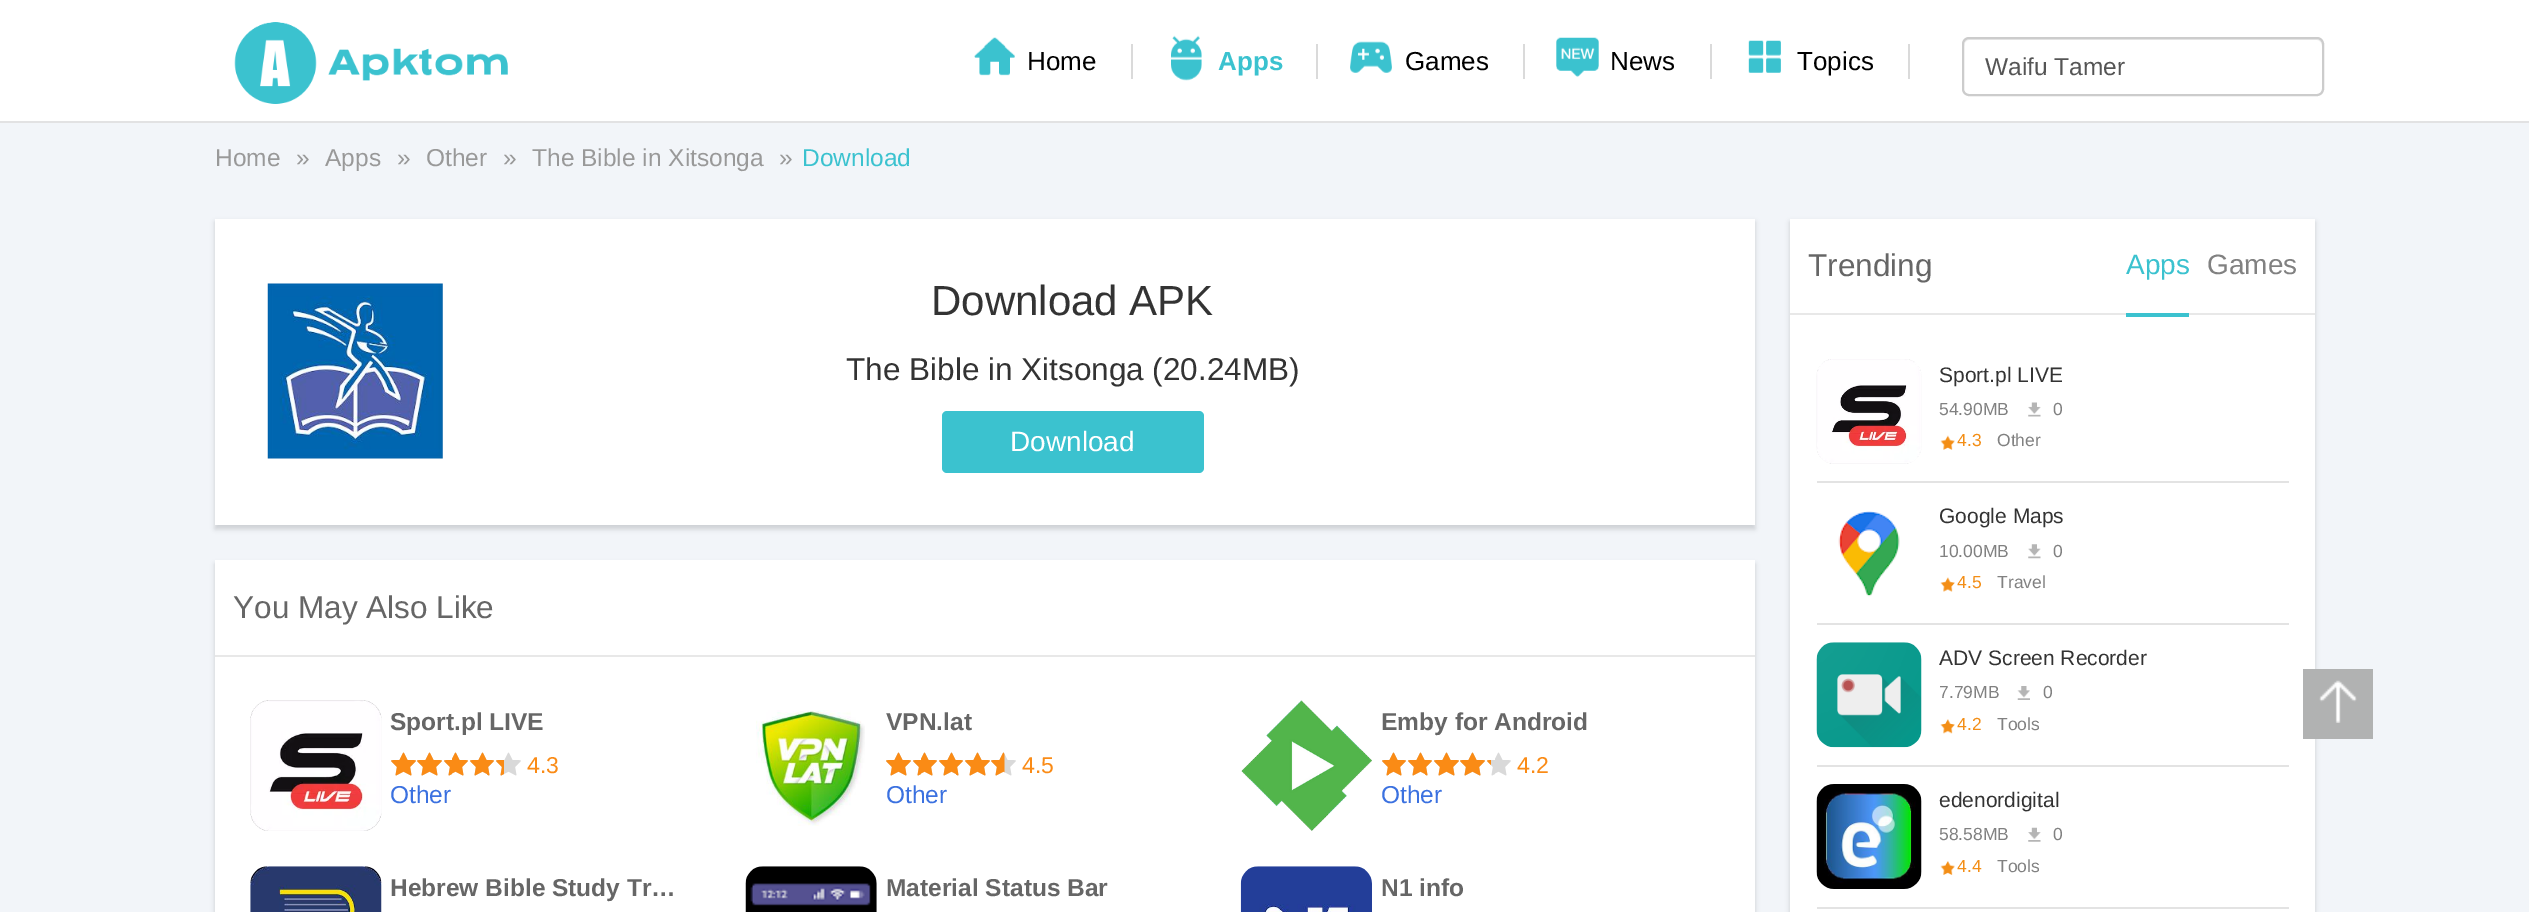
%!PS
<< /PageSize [2529 912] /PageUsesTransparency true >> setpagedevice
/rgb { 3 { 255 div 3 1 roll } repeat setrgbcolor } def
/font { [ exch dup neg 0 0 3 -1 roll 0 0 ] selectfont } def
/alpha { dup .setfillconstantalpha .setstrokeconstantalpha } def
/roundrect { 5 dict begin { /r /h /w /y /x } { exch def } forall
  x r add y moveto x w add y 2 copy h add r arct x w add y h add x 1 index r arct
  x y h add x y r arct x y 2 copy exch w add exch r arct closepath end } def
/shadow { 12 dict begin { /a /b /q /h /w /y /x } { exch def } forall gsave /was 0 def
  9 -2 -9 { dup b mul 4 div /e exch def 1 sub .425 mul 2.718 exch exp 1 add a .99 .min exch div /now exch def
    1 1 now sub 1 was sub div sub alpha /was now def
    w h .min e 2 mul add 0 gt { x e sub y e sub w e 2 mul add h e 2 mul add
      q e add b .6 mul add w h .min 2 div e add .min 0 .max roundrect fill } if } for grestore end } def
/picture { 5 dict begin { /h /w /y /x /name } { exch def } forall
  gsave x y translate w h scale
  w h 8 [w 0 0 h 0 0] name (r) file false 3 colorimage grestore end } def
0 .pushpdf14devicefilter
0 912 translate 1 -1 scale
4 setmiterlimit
255 255 255 rgb
0 0 2529 912 rectfill
226 226 227 rgb
0 121 2529 2 rectfill
(img/1.rgb) 234 22 274 82 picture
(img/2.rgb) 974 37 41 39 picture
218 218 218 rgb
1131 44 2 35 rectfill
(img/3.rgb) 1171 35 31 46 picture
1316 44 2 35 rectfill
(img/4.rgb) 1350 41 42 32 picture
1523 44 2 35 rectfill
(img/5.rgb) 1556 37 43 40 picture
1710 44 2 35 rectfill
(img/6.rgb) 1748 40 33 33 picture
1908 44 2 35 rectfill
236 236 236 rgb
1969 40 moveto 2317 40 lineto 2320 40 2322 43 2322 46 curveto 2322 43 2321 39 2317 39 curveto 1969 39 lineto 1965 39 1964 43 1964 46 curveto 1964 43 1966 40 1969 40 curveto closepath fill
204 204 204 rgb
2 setlinewidth
1963 38 360 57 6 roundrect stroke
242 245 249 rgb
0 123 2529 789 rectfill
0 0 0 rgb
215 222 1540 307 0 2.5 0.15 shadow
255 255 255 rgb
215 219 1540 306 rectfill
(img/7.rgb) 267 283 176 176 picture
59 194 207 rgb
942 411 262 62 5 roundrect fill
0 0 0 rgb
215 564 1540 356 0 2.5 0.15 shadow
255 255 255 rgb
215 560 1540 352 rectfill
232 232 232 rgb
215 655 1540 2 rectfill
(img/8.rgb) 250 700 132 131 picture
(img/9.rgb) 391 752 130 24 picture
(img/10.rgb) 391 752 113 24 picture
(img/11.rgb) 756 710 109 116 picture
(img/12.rgb) 886 752 130 24 picture
(img/13.rgb) 886 752 119 24 picture
(img/14.rgb) 1241 700 131 131 picture
(img/15.rgb) 1382 752 129 24 picture
(img/16.rgb) 1382 752 109 24 picture
(img/17.rgb) 250 866 132 46 picture
(img/18.rgb) 745 866 132 46 picture
(img/19.rgb) 1240 866 132 46 picture
0 0 0 rgb
1790 222 525 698 0 2.5 0.15 shadow
[
  [1790 219 525 693 255 255 255]
  [1790 313 525 2 232 232 232]
  [2126 313 63 4 59 194 207]
  [1817 481 472 2 227 227 227]
] { aload pop rgb rectfill } forall
(img/20.rgb) 1816 359 106 105 picture
(img/21.rgb) 2028 402 13 15 picture
(img/22.rgb) 1940 435 15 15 picture
1817 623 472 2 rectfill
(img/23.rgb) 1838 511 62 86 picture
(img/24.rgb) 2028 544 13 15 picture
(img/25.rgb) 1940 577 15 15 picture
1817 765 472 2 rectfill
(img/26.rgb) 1816 642 106 106 picture
(img/27.rgb) 2017 686 13 14 picture
(img/28.rgb) 1940 719 15 15 picture
1817 907 472 2 rectfill
(img/29.rgb) 1816 784 106 105 picture
(img/30.rgb) 2028 827 13 15 picture
(img/31.rgb) 1940 861 15 14 picture
177 178 178 rgb
2303 669 70 70 rectfill
(img/32.rgb) 2319 680 38 43 picture
/LiberationSans-Regular 26 font
0 0 0 rgb
1027 70 moveto (Home) show
/LiberationSans-Bold 26 font
59 194 207 rgb
1218 70 moveto (Apps) show
/LiberationSans-Regular 26 font
0 0 0 rgb
[
  [(Games) 1405 70]
  [(News) 1610 70]
  [(Topics) 1797 70]
] { aload pop moveto show } forall
/LiberationSans-Regular 24.5 font
85 85 85 rgb
1985 75 moveto (Waifu Tamer) show
153 153 153 rgb
[
  [(Home) 215 166]
  [(») 296 166]
  [(Apps) 325 166]
  [(») 397 166]
  [(Other) 426 166]
  [(») 503 166]
  [(The Bible in Xitsonga) 532 166]
  [(») 779 166]
] { aload pop moveto show } forall
59 194 207 rgb
802 166 moveto (Download) show
/LiberationSans-Regular 42 font
51 51 51 rgb
931 315 moveto (Download APK) show
/LiberationSans-Regular 31.5 font
846 380 moveto (The Bible in Xitsonga \(20.24MB\)) show
/LiberationSans-Regular 28 font
255 255 255 rgb
1010 451 moveto (Download) show
/LiberationSans-Regular 31.5 font
102 102 102 rgb
233 618 moveto (You May Also Like) show
/LiberationSans-Bold 24.5 font
390 730 moveto (Sport.pl LIVE) show
/LiberationSans-Regular 23 font
250 139 22 rgb
527 773 moveto (4.3) show
/LiberationSans-Regular 24.5 font
59 113 224 rgb
390 803 moveto (Other) show
/LiberationSans-Bold 24.5 font
102 102 102 rgb
886 730 moveto (VPN.lat) show
/LiberationSans-Regular 23 font
250 139 22 rgb
1022 773 moveto (4.5) show
/LiberationSans-Regular 24.5 font
59 113 224 rgb
886 803 moveto (Other) show
/LiberationSans-Bold 24.5 font
102 102 102 rgb
1381 730 moveto (Emby for Android) show
/LiberationSans-Regular 23 font
250 139 22 rgb
1517 773 moveto (4.2) show
/LiberationSans-Regular 24.5 font
59 113 224 rgb
1381 803 moveto (Other) show
/LiberationSans-Bold 24.5 font
102 102 102 rgb
[
  [(Hebrew Bible Study Tr…) 390 896]
  [(Material Status Bar) 886 896]
  [(N1 info) 1381 896]
] { aload pop moveto show } forall
/LiberationSans-Regular 31.5 font
1808 276 moveto (Trending) show
/LiberationSans-Regular 28 font
59 194 207 rgb
2126 274 moveto (Apps) show
129 129 129 rgb
2207 274 moveto (Games) show
/LiberationSans-Regular 21 font
51 51 51 rgb
1939 382 moveto (Sport.pl LIVE) show
/LiberationSans-Regular 17.5 font
129 129 129 rgb
1939 415 moveto (54.90MB) show
2053 415 moveto (0) show
243 142 22 rgb
1957 446 moveto (4.3) show
129 129 129 rgb
1997 446 moveto (Other) show
/LiberationSans-Regular 21 font
51 51 51 rgb
1939 523 moveto (Google Maps) show
/LiberationSans-Regular 17.5 font
129 129 129 rgb
1939 557 moveto (10.00MB) show
2053 557 moveto (0) show
243 142 22 rgb
1957 588 moveto (4.5) show
129 129 129 rgb
1997 588 moveto (Travel) show
/LiberationSans-Regular 21 font
51 51 51 rgb
1939 665 moveto (ADV Screen Recorder) show
/LiberationSans-Regular 17.5 font
129 129 129 rgb
1939 698 moveto (7.79MB) show
2043 698 moveto (0) show
243 142 22 rgb
1957 730 moveto (4.2) show
129 129 129 rgb
1997 730 moveto (Tools) show
/LiberationSans-Regular 21 font
51 51 51 rgb
1939 807 moveto (edenordigital) show
/LiberationSans-Regular 17.5 font
129 129 129 rgb
1939 840 moveto (58.58MB) show
2053 840 moveto (0) show
243 142 22 rgb
1957 872 moveto (4.4) show
129 129 129 rgb
1997 872 moveto (Tools) show
.poppdf14devicefilter showpage
